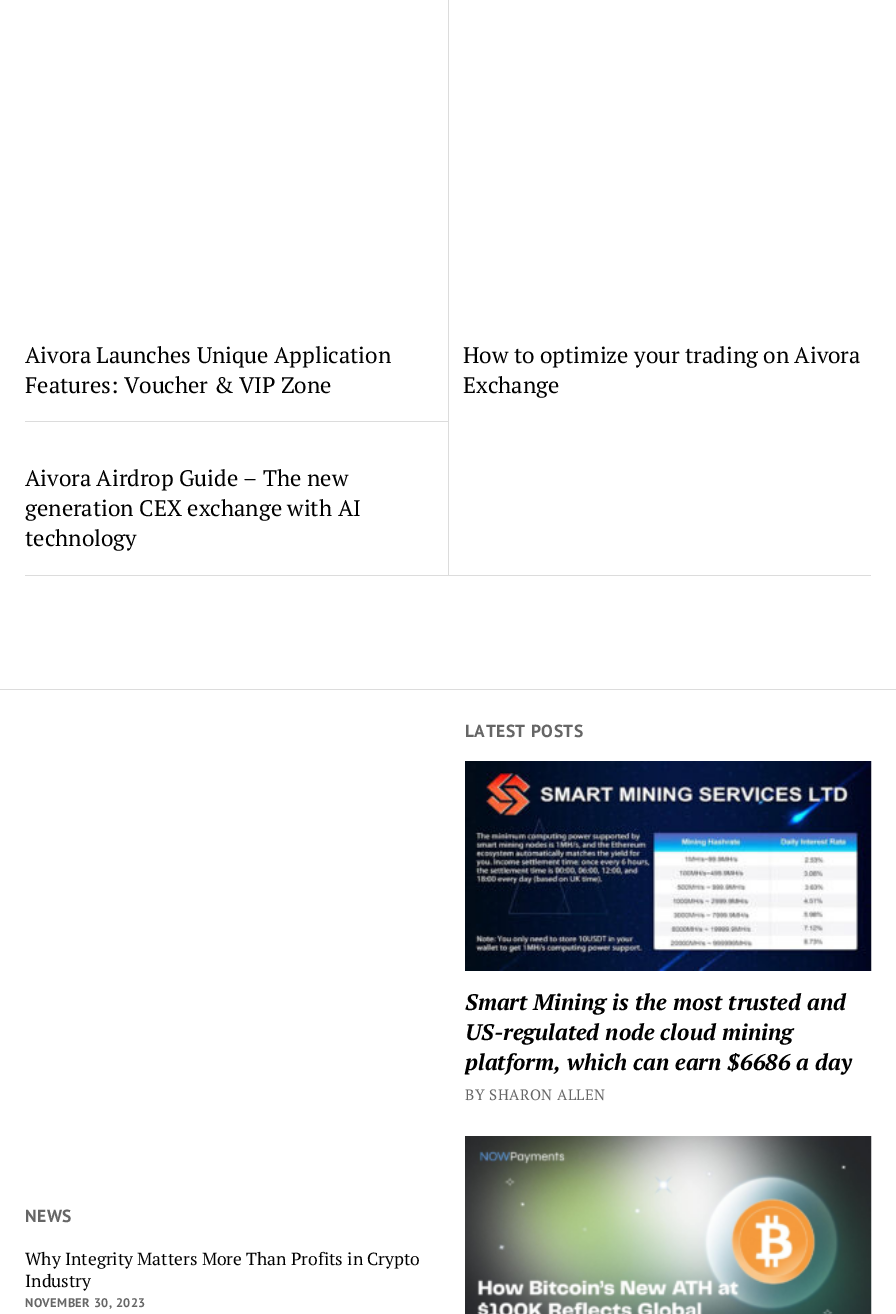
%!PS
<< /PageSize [896 1314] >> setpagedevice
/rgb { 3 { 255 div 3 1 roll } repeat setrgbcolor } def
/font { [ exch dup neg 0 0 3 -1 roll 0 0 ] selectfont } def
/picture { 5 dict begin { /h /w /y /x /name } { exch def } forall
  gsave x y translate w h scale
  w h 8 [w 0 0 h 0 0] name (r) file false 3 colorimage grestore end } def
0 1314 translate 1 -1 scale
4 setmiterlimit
255 255 255 rgb
0 0 896 1314 rectfill
[
  [25 575 846 1 220 220 220]
  [448 0 1 421 220 220 220]
  [25 421 424 1 220 220 220]
  [448 421 1 154 220 220 220]
  [0 689 896 1 220 220 220]
] { aload pop rgb rectfill } forall
(img/1.rgb) 465 761 407 210 picture
(img/2.rgb) 465 1136 407 178 picture
/PTSerif-Regular 22.5 font
0 0 0 rgb
[
  [(Aivora Launches Unique Application) 25 363]
  [(Features: Voucher & VIP Zone) 25 393]
  [(How to optimize your trading on Aivora) 463 363]
  [(Exchange) 463 393]
  [(Aivora Airdrop Guide – The new) 25 486]
  [(generation CEX exchange with AI) 25 516]
  [(technology) 25 546]
] { aload pop moveto show } forall
/PTSans-Bold 17.5 font
102 102 102 rgb
465 737 moveto 0.5 0 (LATEST POSTS) ashow
/PTSerif-BoldItalic 22.5 font
0 0 0 rgb
[
  [(Smart Mining is the most trusted and) 465 1010]
  [(US-regulated node cloud mining) 465 1040]
  [(platform, which can earn $6686 a day) 465 1070]
] { aload pop moveto show } forall
/PTSerif-Regular 15 font
102 102 102 rgb
465 1100 moveto 0.5 0 (BY SHARON ALLEN) ashow
/PTSans-Bold 17.5 font
25 1222 moveto 0.5 0 (NEWS) ashow
/PTSerif-Regular 17.5 font
0 0 0 rgb
25 1265 moveto (Why Integrity Matters More Than Profits in Crypto) show
25 1287 moveto (Industry) show
/PTSans-Bold 12.5 font
102 102 102 rgb
25 1307 moveto 0.4 0 (NOVEMBER 30, 2023) ashow
showpage
